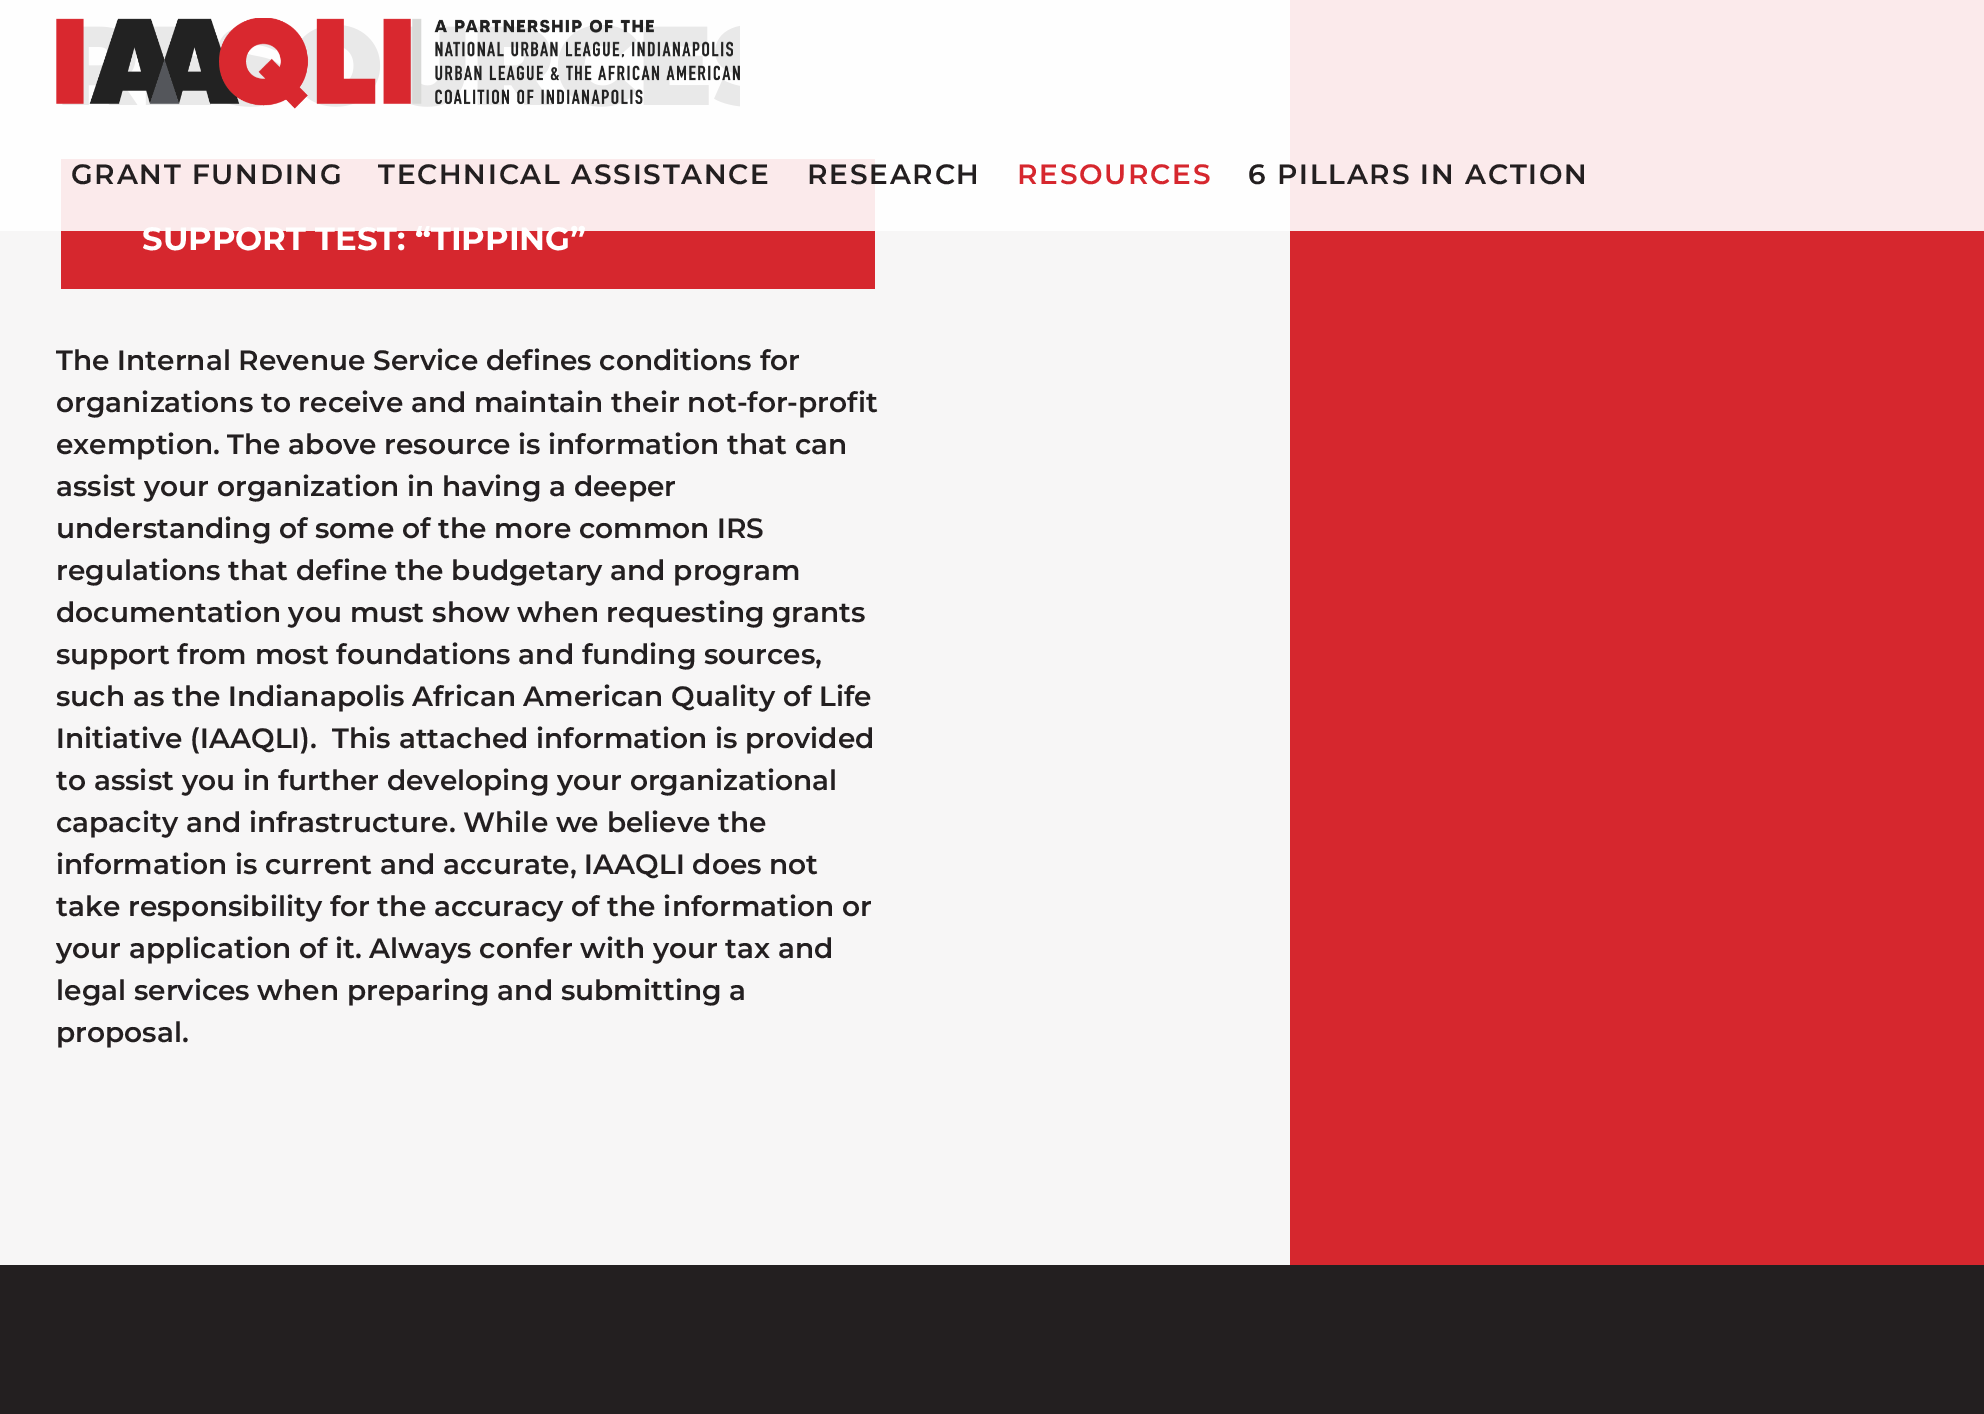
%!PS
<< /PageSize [1984 1414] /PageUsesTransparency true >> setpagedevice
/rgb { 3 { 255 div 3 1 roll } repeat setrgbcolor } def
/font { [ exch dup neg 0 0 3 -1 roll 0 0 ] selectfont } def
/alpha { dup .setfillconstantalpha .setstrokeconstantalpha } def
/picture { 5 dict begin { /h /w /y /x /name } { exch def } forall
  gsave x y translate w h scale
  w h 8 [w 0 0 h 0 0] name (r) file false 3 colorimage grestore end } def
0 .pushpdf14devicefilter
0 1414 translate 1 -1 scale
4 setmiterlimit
35 31 32 rgb
0 0 1984 1414 rectfill
[
  [0 0 1290 1265 247 246 246]
  [61 159 814 130 214 39 46]
  [1290 0 694 1265 214 39 46]
] { aload pop rgb rectfill } forall
/Montserrat-Bold 32.25 font
255 255 255 rgb
142 250 moveto (SUPPORT TEST: “TIPPING”) show
0.9 alpha
0 0 1984 231 rectfill
/Montserrat-SemiBold 28 font
1 alpha
35 31 32 rgb
1248 184 moveto 1.75 0 (6 PILLARS IN ACTION) ashow
214 39 46 rgb
1017 184 moveto 1.75 0 (RESOURCES) ashow
35 31 32 rgb
807 184 moveto 1.75 0 (RESEARCH) ashow
378 184 moveto 1.75 0 (TECHNICAL ASSISTANCE) ashow
71 184 moveto 1.75 0 (GRANT FUNDING) ashow
(img/1.rgb) 56 18 684 91 picture
[
  [(The Internal Revenue Service defines conditions for) 56 370]
  [(organizations to receive and maintain their not-for-profit) 56 412]
  [(exemption. The above resource is information that can) 56 454]
  [(assist your organization in having a deeper) 56 496]
  [(understanding of some of the more common IRS) 56 538]
  [(regulations that define the budgetary and program) 56 580]
  [(documentation you must show when requesting grants) 56 622]
  [(support from most foundations and funding sources,) 56 664]
  [(such as the Indianapolis African American Quality of Life) 56 706]
  [(Initiative \(IAAQLI\).  This attached information is provided) 56 748]
  [(to assist you in further developing your organizational) 56 790]
  [(capacity and infrastructure. While we believe the) 56 832]
  [(information is current and accurate, IAAQLI does not) 56 874]
  [(take responsibility for the accuracy of the information or) 56 916]
  [(your application of it. Always confer with your tax and) 56 958]
  [(legal services when preparing and submitting a) 56 1000]
  [(proposal.) 56 1042]
] { aload pop moveto show } forall
.poppdf14devicefilter showpage
